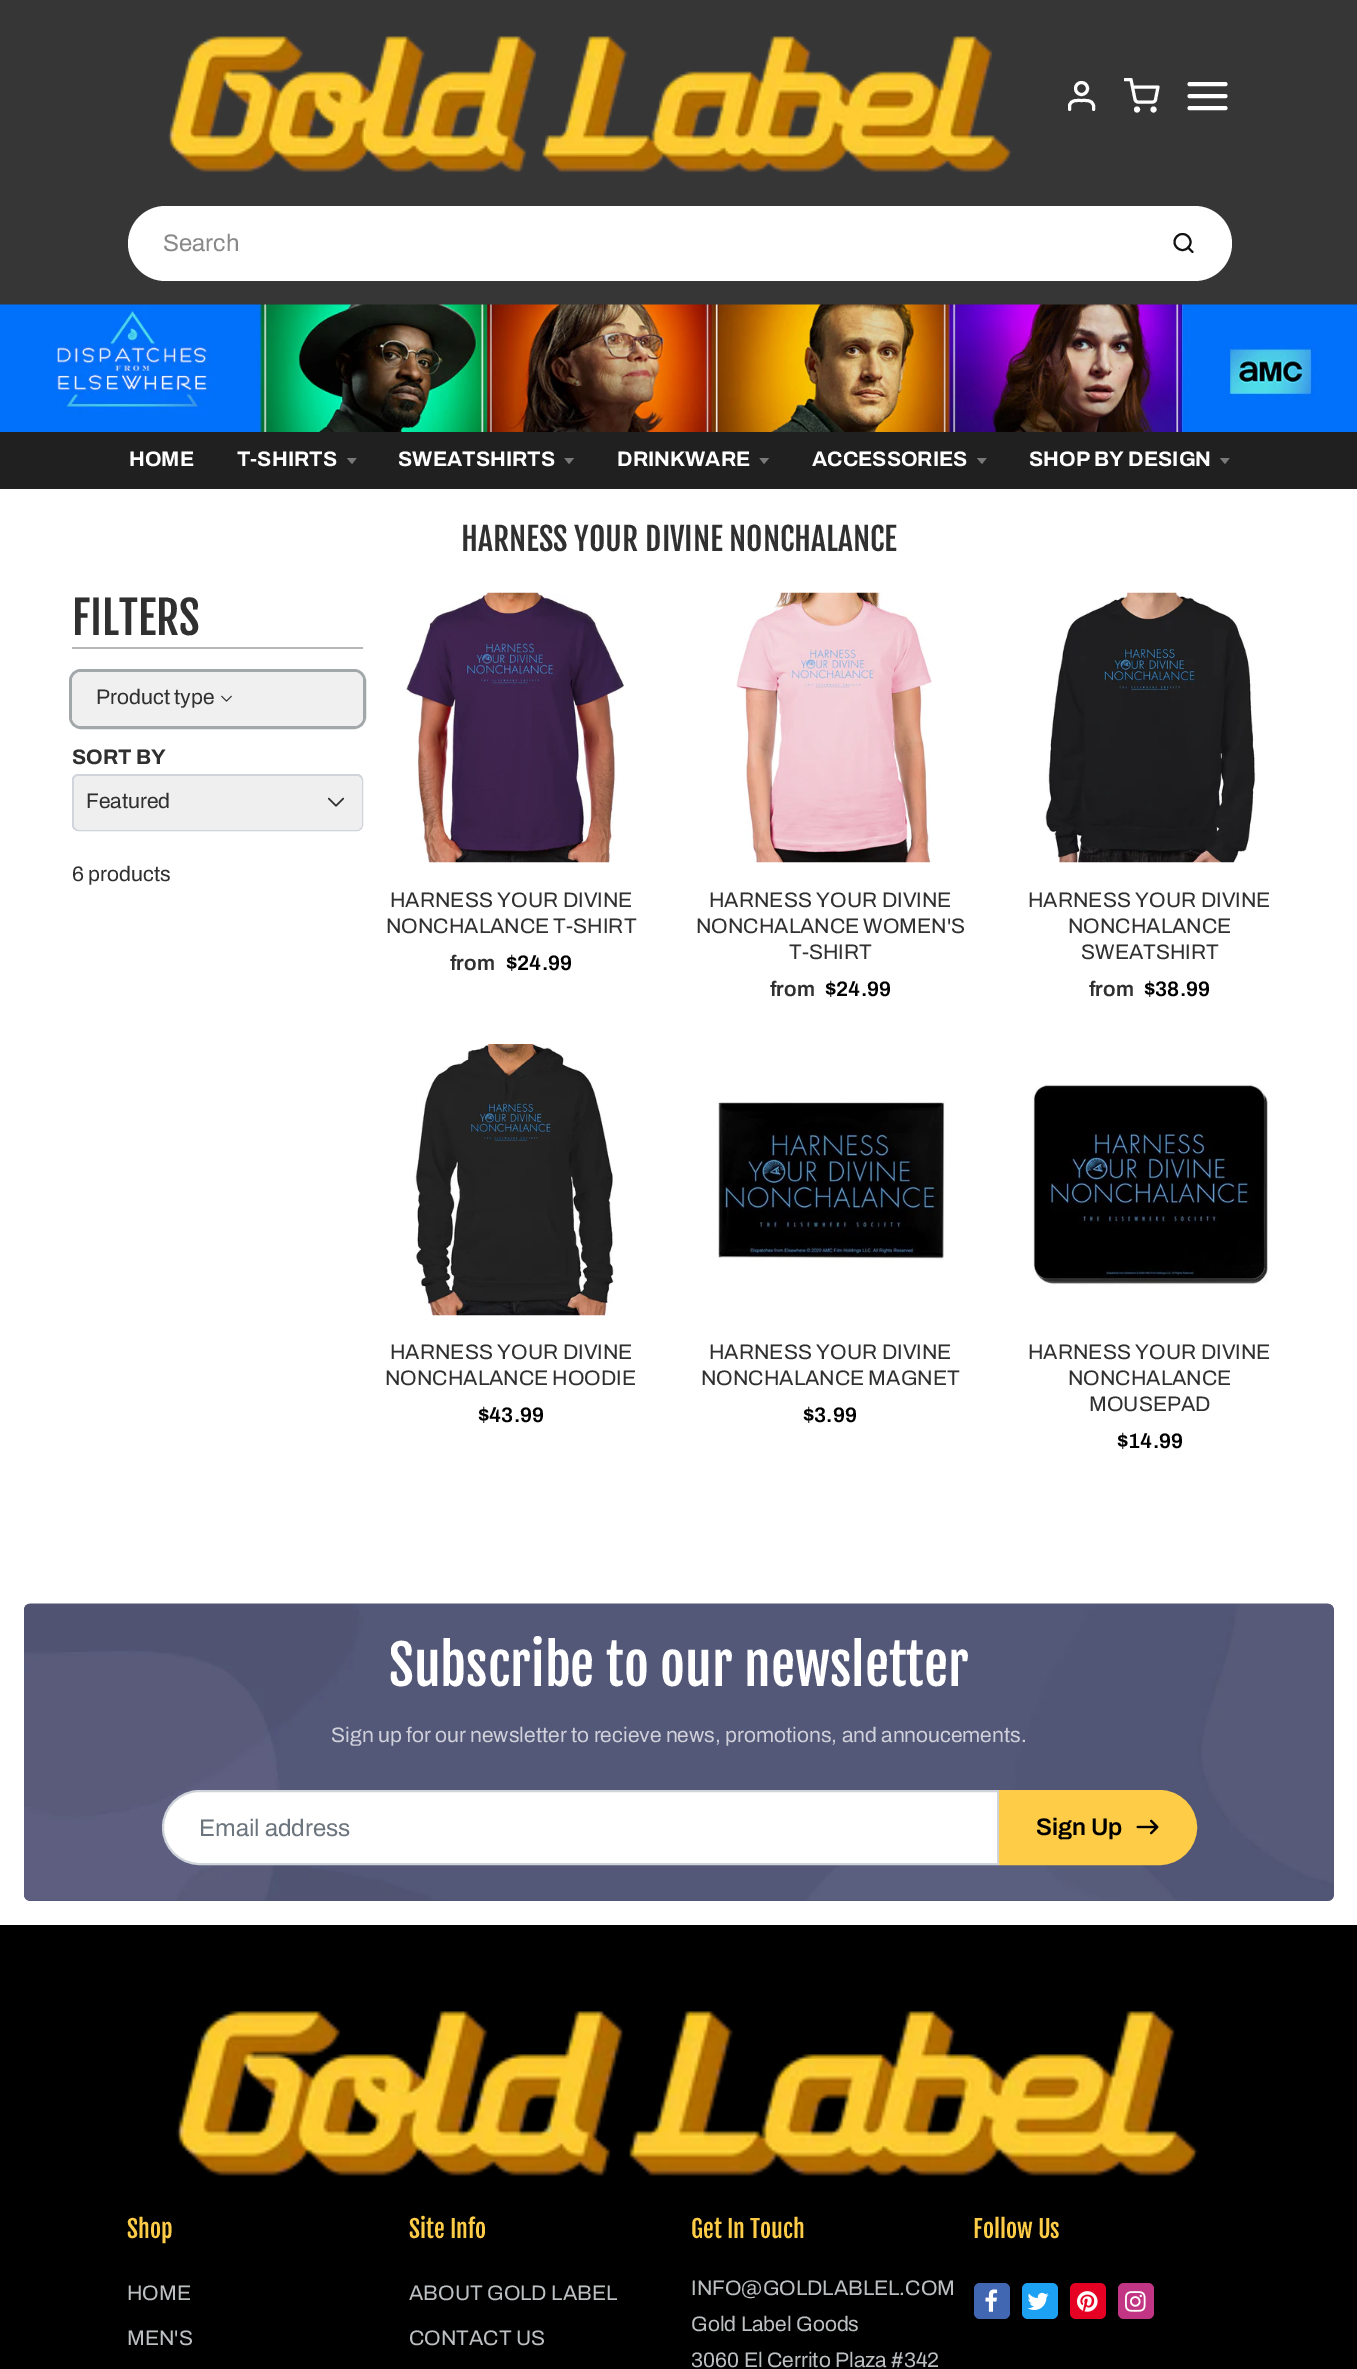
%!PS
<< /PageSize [1357 2369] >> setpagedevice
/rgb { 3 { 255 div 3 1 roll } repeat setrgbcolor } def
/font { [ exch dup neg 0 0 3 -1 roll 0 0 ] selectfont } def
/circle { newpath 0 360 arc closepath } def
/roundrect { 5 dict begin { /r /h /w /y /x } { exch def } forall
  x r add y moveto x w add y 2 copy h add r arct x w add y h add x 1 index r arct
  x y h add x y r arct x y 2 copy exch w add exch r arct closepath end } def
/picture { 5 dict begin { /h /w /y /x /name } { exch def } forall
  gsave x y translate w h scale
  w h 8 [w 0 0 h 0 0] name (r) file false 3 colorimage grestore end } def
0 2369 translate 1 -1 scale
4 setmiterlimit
255 255 255 rgb
0 0 1357 2369 rectfill
54 54 54 rgb
0 0 1357 305 rectfill
(img/1.rgb) 168 36 844 137 picture
255 255 255 rgb
3 setlinewidth
1 setlinecap
1 setlinejoin
1093.5 109.5 moveto 1093.5 105.5 lineto 1092 99.5 1086 100.5 1081.5 100.5 curveto 1077 100.5 1071 99.5 1069.5 105.5 curveto 1069.5 109.5 lineto stroke
0 setlinecap
0 setlinejoin
1081.5 88.5 6 circle stroke
1137 109.5 1.5 circle stroke
1153.5 109.5 1.5 circle stroke
gsave
1124 78 36 36 rectclip
1 setlinecap
1 setlinejoin
1125 79.5 moveto 1131 79.5 lineto 1135 99.5 lineto 1135.5 101 1136.5 102 1138 102 curveto 1152.5 102 lineto 1154 102 1155.5 101 1155.5 99.5 curveto 1158 87 lineto 1132.5 87 lineto stroke
grestore
4 setlinewidth
1 setlinecap
1 setlinejoin
1189.5 96 moveto 1225.5 96 lineto 1189.5 84 moveto 1225.5 84 lineto 1189.5 108 moveto 1225.5 108 lineto stroke
128 206 1104 75 37.5 roundrect fill
18 18 18 rgb
2 setlinewidth
0 setlinecap
0 setlinejoin
1182.5 242 8 circle stroke
1 setlinecap
1 setlinejoin
1192.5 252 moveto 1188 247.5 lineto stroke
(img/2.rgb) 0 304 1357 128 picture
32 32 32 rgb
0 432 1357 57 rectfill
gsave
347 458 12 7 rectclip
121 121 121 rgb
346.5 457.5 moveto 352 464 lineto 357 457.5 lineto closepath fill
grestore
gsave
564 458 12 7 rectclip
121 121 121 rgb
564 457.5 moveto 569 464 lineto 574.5 457.5 lineto closepath fill
grestore
gsave
759 458 12 7 rectclip
121 121 121 rgb
759 457.5 moveto 764 464 lineto 769.5 457.5 lineto closepath fill
grestore
gsave
977 458 12 7 rectclip
121 121 121 rgb
976.5 457.5 moveto 982 464 lineto 987 457.5 lineto closepath fill
grestore
gsave
1220 458 12 7 rectclip
121 121 121 rgb
1219.5 457.5 moveto 1225 464 lineto 1230 457.5 lineto closepath fill
grestore
182 182 182 rgb
72 647 291 2 rectfill
162 167 170 rgb
3 setlinewidth
0 setlinecap
0 setlinejoin
70.5 670.5 294 57 10.5 roundrect stroke
240 240 241 rgb
72 672 291 54 9 roundrect fill
(img/3.rgb) 221 695 11 7 picture
209 213 219 rgb
2 setlinewidth
73 775 289 55 5 roundrect stroke
239 239 239 rgb
74 776 288 54 6 roundrect fill
(img/4.rgb) 327 797 18 10 picture
(img/5.rgb) 406 592 218 271 picture
(img/6.rgb) 736 592 196 271 picture
(img/7.rgb) 1044 592 212 271 picture
(img/8.rgb) 414 1044 200 272 picture
(img/9.rgb) 718 1101 227 160 picture
(img/10.rgb) 1032 1083 236 202 picture
84 87 121 rgb
24 1604 1310 297 6 roundrect fill
(img/11.rgb) 23 1603 1311 298 picture
255 255 255 rgb
199.5 1791 moveto 998 1791 lineto 998 1864 lineto 199.5 1864 lineto 179.5 1864 163 1847.5 163 1827.5 curveto 163 1807.5 179.5 1791 199.5 1791 curveto closepath gsave fill grestore
206 212 218 rgb
stroke
254 204 70 rgb
1000 1791 moveto 1159.5 1791 lineto 1179.5 1791 1196 1807.5 1196 1827.5 curveto 1196 1847.5 1179.5 1864 1159.5 1864 curveto 1000 1864 lineto closepath gsave fill grestore
stroke
(img/12.rgb) 1136 1819 23 16 picture
0 0 0 rgb
0 1925 1357 444 rectfill
(img/13.rgb) 176 2011 1023 165 picture
66 103 178 rgb
974 2283 36 36 6 roundrect fill
(img/14.rgb) 985 2289 13 23 picture
29 161 242 rgb
1022 2283 36 36 6 roundrect fill
(img/15.rgb) 1027 2292 22 18 picture
230 0 35 rgb
1070 2283 36 36 6 roundrect fill
(img/16.rgb) 1077 2291 21 21 picture
193 53 132 rgb
1118 2283 36 36 6 roundrect fill
(img/17.rgb) 1125 2291 21 21 picture
/Archivo-Regular 24 font
137 137 137 rgb
163 251 moveto (Search) show
/Archivo-Bold 21 font
255 255 255 rgb
[
  [(HOME) 129 466]
  [(T-SHIRTS) 237 466]
  [(SWEATSHIRTS) 398 466]
  [(DRINKWARE) 617 466]
  [(ACCESSORIES) 812 466]
  [(SHOP BY DESIGN) 1029 466]
] { aload pop moveto show } forall
/FjallaOne-Regular 31.5 font
48 48 48 rgb
461 551 moveto (HARNESS YOUR DIVINE NONCHALANCE) show
/FjallaOne-Regular 45 font
72 635 moveto (FILTERS) show
/Archivo-Regular 21 font
96 704 moveto (Product type) show
/Archivo-Bold 21 font
72 764 moveto (SORT BY) show
/Archivo-Regular 21 font
[
  [(Featured) 86 808]
  [(6 products) 72 881]
  [(HARNESS YOUR DIVINE) 390 907]
  [(NONCHALANCE T-SHIRT) 386 933]
] { aload pop moveto show } forall
/Archivo-SemiBold 21 font
450 970 moveto (from) show
0 0 0 rgb
506 970 moveto ($24.99) show
/Archivo-Regular 21 font
48 48 48 rgb
[
  [(HARNESS YOUR DIVINE) 709 907]
  [(NONCHALANCE WOMEN'S) 696 933]
  [(T-SHIRT) 789 959]
] { aload pop moveto show } forall
/Archivo-SemiBold 21 font
770 996 moveto (from) show
0 0 0 rgb
825 996 moveto ($24.99) show
/Archivo-Regular 21 font
48 48 48 rgb
[
  [(HARNESS YOUR DIVINE) 1028 907]
  [(NONCHALANCE) 1068 933]
  [(SWEATSHIRT) 1081 959]
] { aload pop moveto show } forall
/Archivo-SemiBold 21 font
1089 996 moveto (from) show
0 0 0 rgb
1144 996 moveto ($38.99) show
/Archivo-Regular 21 font
48 48 48 rgb
390 1359 moveto (HARNESS YOUR DIVINE) show
385 1385 moveto (NONCHALANCE HOODIE) show
/Archivo-SemiBold 21 font
0 0 0 rgb
478 1422 moveto ($43.99) show
/Archivo-Regular 21 font
48 48 48 rgb
709 1359 moveto (HARNESS YOUR DIVINE) show
701 1385 moveto (NONCHALANCE MAGNET) show
/Archivo-SemiBold 21 font
0 0 0 rgb
803 1422 moveto ($3.99) show
/Archivo-Regular 21 font
48 48 48 rgb
[
  [(HARNESS YOUR DIVINE) 1028 1359]
  [(NONCHALANCE) 1068 1385]
  [(MOUSEPAD) 1089 1411]
] { aload pop moveto show } forall
/Archivo-SemiBold 21 font
0 0 0 rgb
1117 1448 moveto ($14.99) show
/FjallaOne-Regular 54 font
255 255 255 rgb
389 1686 moveto (Subscribe to our newsletter) show
/Archivo-Regular 21 font
207 208 217 rgb
331 1742 moveto (Sign up for our newsletter to recieve news, promotions, and annoucements.) show
/Archivo-Regular 24 font
108 117 125 rgb
199 1836 moveto (Email address) show
/Archivo-SemiBold 24 font
0 0 0 rgb
1036 1835 moveto (Sign Up) show
/FjallaOne-Regular 24 font
254 204 70 rgb
127 2238 moveto (Shop) show
/Archivo-Regular 21 font
189 192 194 rgb
127 2300 moveto (HOME) show
127 2345 moveto (MEN'S) show
/FjallaOne-Regular 24 font
254 204 70 rgb
409 2238 moveto (Site Info) show
/Archivo-Regular 21 font
189 192 194 rgb
409 2300 moveto (ABOUT GOLD LABEL) show
409 2345 moveto (CONTACT US) show
/FjallaOne-Regular 24 font
254 204 70 rgb
691 2238 moveto (Get In Touch) show
/Archivo-Regular 21 font
189 192 194 rgb
[
  [(INFO@GOLDLABLEL.COM) 691 2295]
  [(Gold Label Goods) 691 2331]
  [(3060 El Cerrito Plaza #342) 691 2367]
] { aload pop moveto show } forall
/FjallaOne-Regular 24 font
254 204 70 rgb
973 2238 moveto (Follow Us) show
showpage
